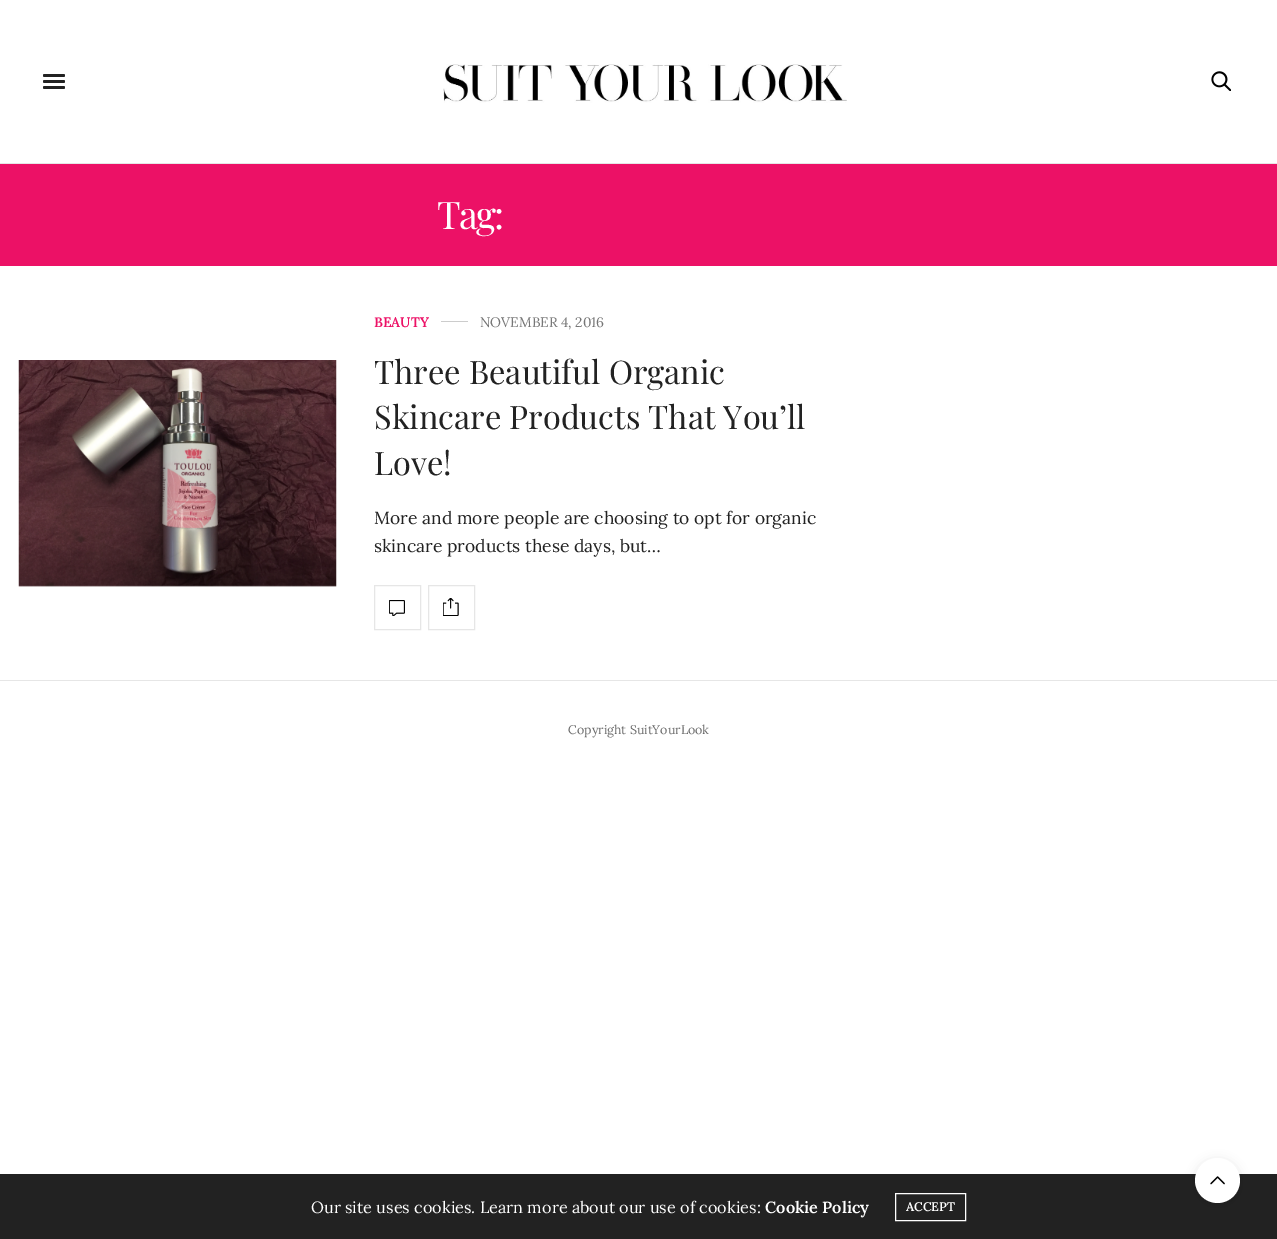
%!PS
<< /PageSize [1277 1239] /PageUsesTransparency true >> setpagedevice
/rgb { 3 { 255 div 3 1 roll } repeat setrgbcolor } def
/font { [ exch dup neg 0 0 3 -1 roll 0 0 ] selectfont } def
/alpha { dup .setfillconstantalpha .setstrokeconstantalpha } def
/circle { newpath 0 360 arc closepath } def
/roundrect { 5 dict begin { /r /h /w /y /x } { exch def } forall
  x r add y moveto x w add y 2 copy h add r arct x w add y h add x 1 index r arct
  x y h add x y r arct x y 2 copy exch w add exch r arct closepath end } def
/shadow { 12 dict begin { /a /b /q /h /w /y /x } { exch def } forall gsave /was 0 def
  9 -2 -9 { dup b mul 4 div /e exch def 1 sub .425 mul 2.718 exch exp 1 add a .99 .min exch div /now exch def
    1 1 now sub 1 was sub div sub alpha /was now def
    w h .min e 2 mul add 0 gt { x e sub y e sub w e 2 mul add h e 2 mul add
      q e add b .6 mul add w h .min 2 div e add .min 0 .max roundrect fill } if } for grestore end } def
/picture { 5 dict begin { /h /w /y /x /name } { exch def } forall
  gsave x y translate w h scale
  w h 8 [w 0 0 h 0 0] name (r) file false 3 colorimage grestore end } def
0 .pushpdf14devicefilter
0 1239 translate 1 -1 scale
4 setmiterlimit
255 255 255 rgb
0 0 1277 1239 rectfill
230 230 230 rgb
0 163 1277 1 rectfill
34 34 34 rgb
43 74 22 3 1.5 roundrect fill
43 80 22 3 1.5 roundrect fill
43 86 22 3 1.5 roundrect fill
(img/1.rgb) 443 64 404 39 picture
(img/2.rgb) 1211 71 20 20 picture
236 17 102 rgb
0 164 1277 102 rectfill
(img/3.rgb) 18 360 319 227 picture
204 204 204 rgb
441 321 27 1 rectfill
230 230 230 rgb
374.5 585.5 46 44 rectstroke
(img/4.rgb) 389 600 16 16 picture
428.5 585.5 46 44 rectstroke
(img/5.rgb) 443 598 16 18 picture
0 680 1277 1 rectfill
34 34 34 rgb
0 1174 1277 65 rectfill
255 255 255 rgb
895.5 1193.5 70 27 rectstroke
0 0 0 rgb
1195 1160 45 45 22.5 5 0.1 shadow
255 255 255 rgb
1217.5 1180.5 22.5 circle fill
(img/6.rgb) 1210 1176 15 9 picture
/PlayfairDisplay-Regular 38 font
437 229 moveto -2 0 (Tag:) ashow
/Lora-SemiBold 13.75 font
236 17 102 rgb
374 327 moveto (BEAUTY) show
/Lora-Regular 13.75 font
118 118 118 rgb
480 327 moveto (NOVEMBER 4, 2016) show
/PlayfairDisplay-Regular 32.5 font
34 34 34 rgb
[
  [(Three Beautiful Organic) 374 384]
  [(Skincare Products That You’ll) 374 429]
  [(Love!) 374 475]
] { aload pop moveto show } forall
/Lora-Regular 17.5 font
374 524 moveto (More and more people are choosing to opt for organic) show
374 552 moveto (skincare products these days, but…) show
/Lora-Regular 12.5 font
106 106 106 rgb
568 734 moveto (Copyright SuitYourLook) show
/Lora-Regular 16.25 font
255 255 255 rgb
311 1213 moveto (Our site uses cookies. Learn more about our use of cookies:) show
/Lora-SemiBold 16.25 font
765 1213 moveto (Cookie Policy) show
/Lora-SemiBold 12.5 font
906 1211 moveto (ACCEPT) show
.poppdf14devicefilter showpage
